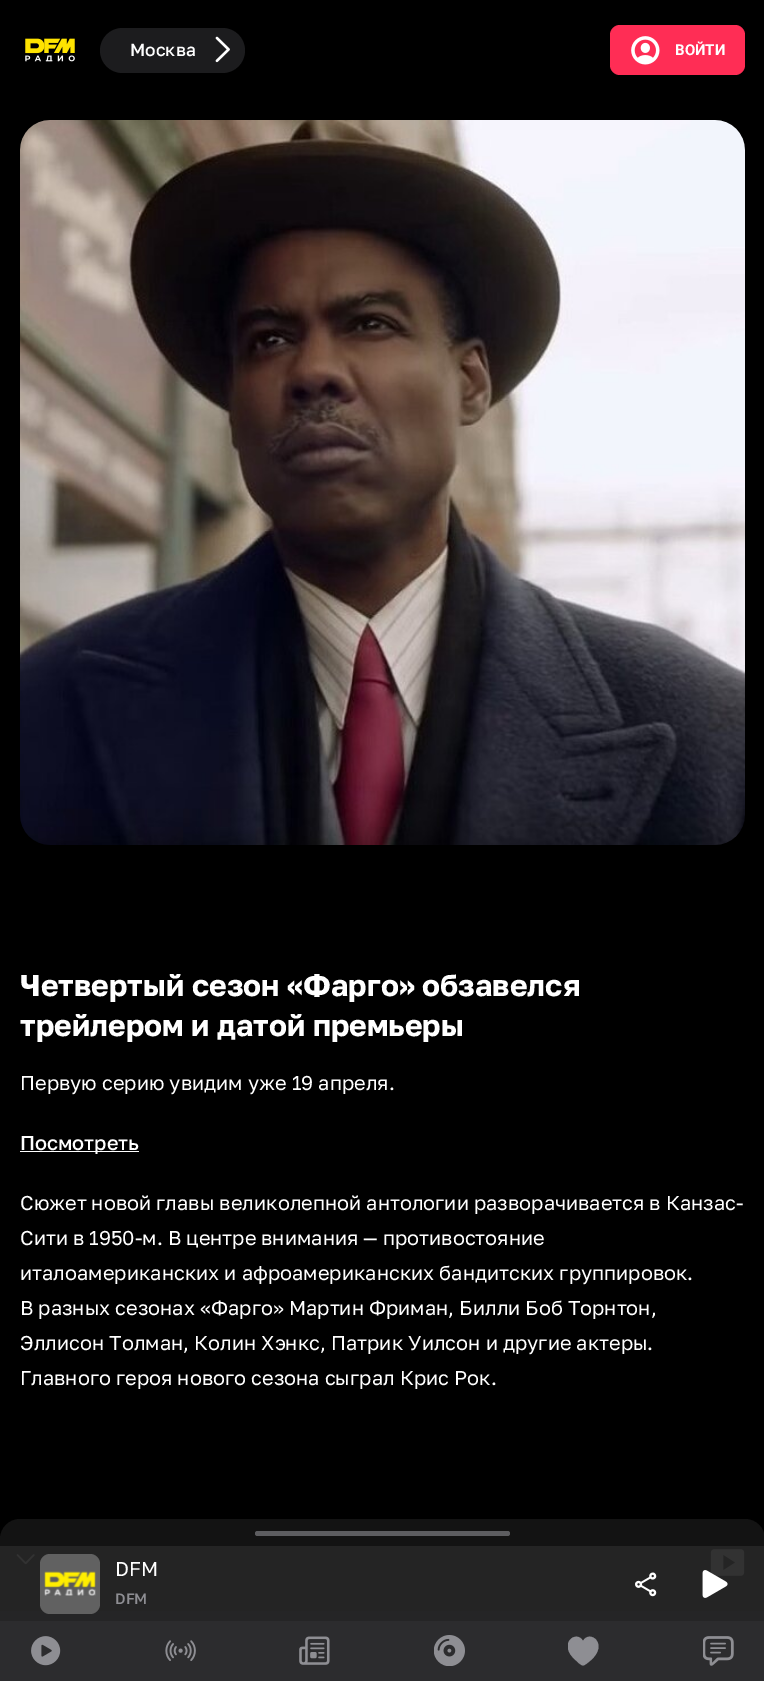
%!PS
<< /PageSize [764 1681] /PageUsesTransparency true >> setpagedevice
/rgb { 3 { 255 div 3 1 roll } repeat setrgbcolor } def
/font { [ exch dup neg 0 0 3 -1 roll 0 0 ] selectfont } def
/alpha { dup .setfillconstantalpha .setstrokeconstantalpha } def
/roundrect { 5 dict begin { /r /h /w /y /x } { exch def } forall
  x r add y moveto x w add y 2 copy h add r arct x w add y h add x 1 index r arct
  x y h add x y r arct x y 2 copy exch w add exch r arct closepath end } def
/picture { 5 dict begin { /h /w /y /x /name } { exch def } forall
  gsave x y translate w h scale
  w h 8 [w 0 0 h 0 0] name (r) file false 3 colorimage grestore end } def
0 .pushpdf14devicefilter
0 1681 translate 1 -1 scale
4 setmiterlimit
0 0 0 rgb
0 0 764 1681 rectfill
(img/1.rgb) 25 38 50 24 picture
28 28 30 rgb
100 28 145 45 22.5 roundrect fill
(img/2.rgb) 215 36 15 27 picture
255 45 85 rgb
610 25 135 50 10 roundrect fill
(img/3.rgb) 631 36 29 29 picture
(img/4.rgb) 20 120 725 725 picture
255 255 255 rgb
20 1151 119 1 rectfill
0.5 alpha
37 37 37 rgb
20 1519 moveto 745 1519 lineto 756 1519 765 1528 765 1539 curveto 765 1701 lineto 0 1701 lineto 0 1539 lineto 0 1528 9 1519 20 1519 curveto closepath fill
1 alpha
44 44 46 rgb
0 1611 764 70 rectfill
(img/5.rgb) 31 1636 30 30 picture
(img/6.rgb) 165 1640 31 21 picture
(img/7.rgb) 299 1636 31 29 picture
(img/8.rgb) 434 1635 31 31 picture
gsave
568 1635 31 31 rectclip
142 142 147 rgb
583 1665.5 moveto 585 1665.5 589 1661.5 590.5 1660.5 curveto 609.5 1644 589.5 1629 583 1641 curveto 576.5 1629 556.5 1644 576 1660.5 curveto 577 1661.5 581 1665.5 583 1665.5 curveto fill
grestore
(img/9.rgb) 703 1636 31 30 picture
93 93 96 rgb
255 1531 255 5 2.5 roundrect fill
(img/10.rgb) 16 1554 19 11 picture
(img/11.rgb) 710 1549 35 27 picture
0.94 alpha
37 37 37 rgb
0 1546 764 75 rectfill
1 alpha
97 97 97 rgb
40 1554 60 60 10 roundrect fill
(img/12.rgb) 44 1571 52 25 picture
(img/13.rgb) 635 1572 22 25 picture
(img/14.rgb) 702 1570 26 28 picture
/GolosText-Medium 17.5 font
255 255 255 rgb
130 56 moveto (Москва) show
/Roboto-Bold 15 font
675 55 moveto (ВОЙТИ) show
/GolosText-Bold 30 font
20 996 moveto (Четвертый сезон «Фарго» обзавелся) show
20 1036 moveto (трейлером и датой премьеры) show
/GolosText-Regular 20 font
20 1090 moveto (Первую серию увидим уже 19 апреля.) show
/GolosText-Medium 20 font
20 1150 moveto (Посмотреть) show
/GolosText-Regular 20 font
[
  [(Сюжет новой главы великолепной антологии разворачивается в Канзас-) 20 1210]
  [(Сити в 1950-м. В центре внимания — противостояние) 20 1245]
  [(италоамериканских и афроамериканских бандитских группировок.) 20 1280]
  [(В разных сезонах «Фарго» Мартин Фриман, Билли Боб Торнтон,) 20 1315]
  [(Эллисон Толман, Колин Хэнкс, Патрик Уилсон и другие актеры.) 20 1350]
  [(Главного героя нового сезона сыграл Крис Рок.) 20 1385]
  [(DFM) 115 1576]
] { aload pop moveto show } forall
/GolosText-Medium 15 font
142 142 147 rgb
115 1604 moveto (DFM) show
.poppdf14devicefilter showpage
